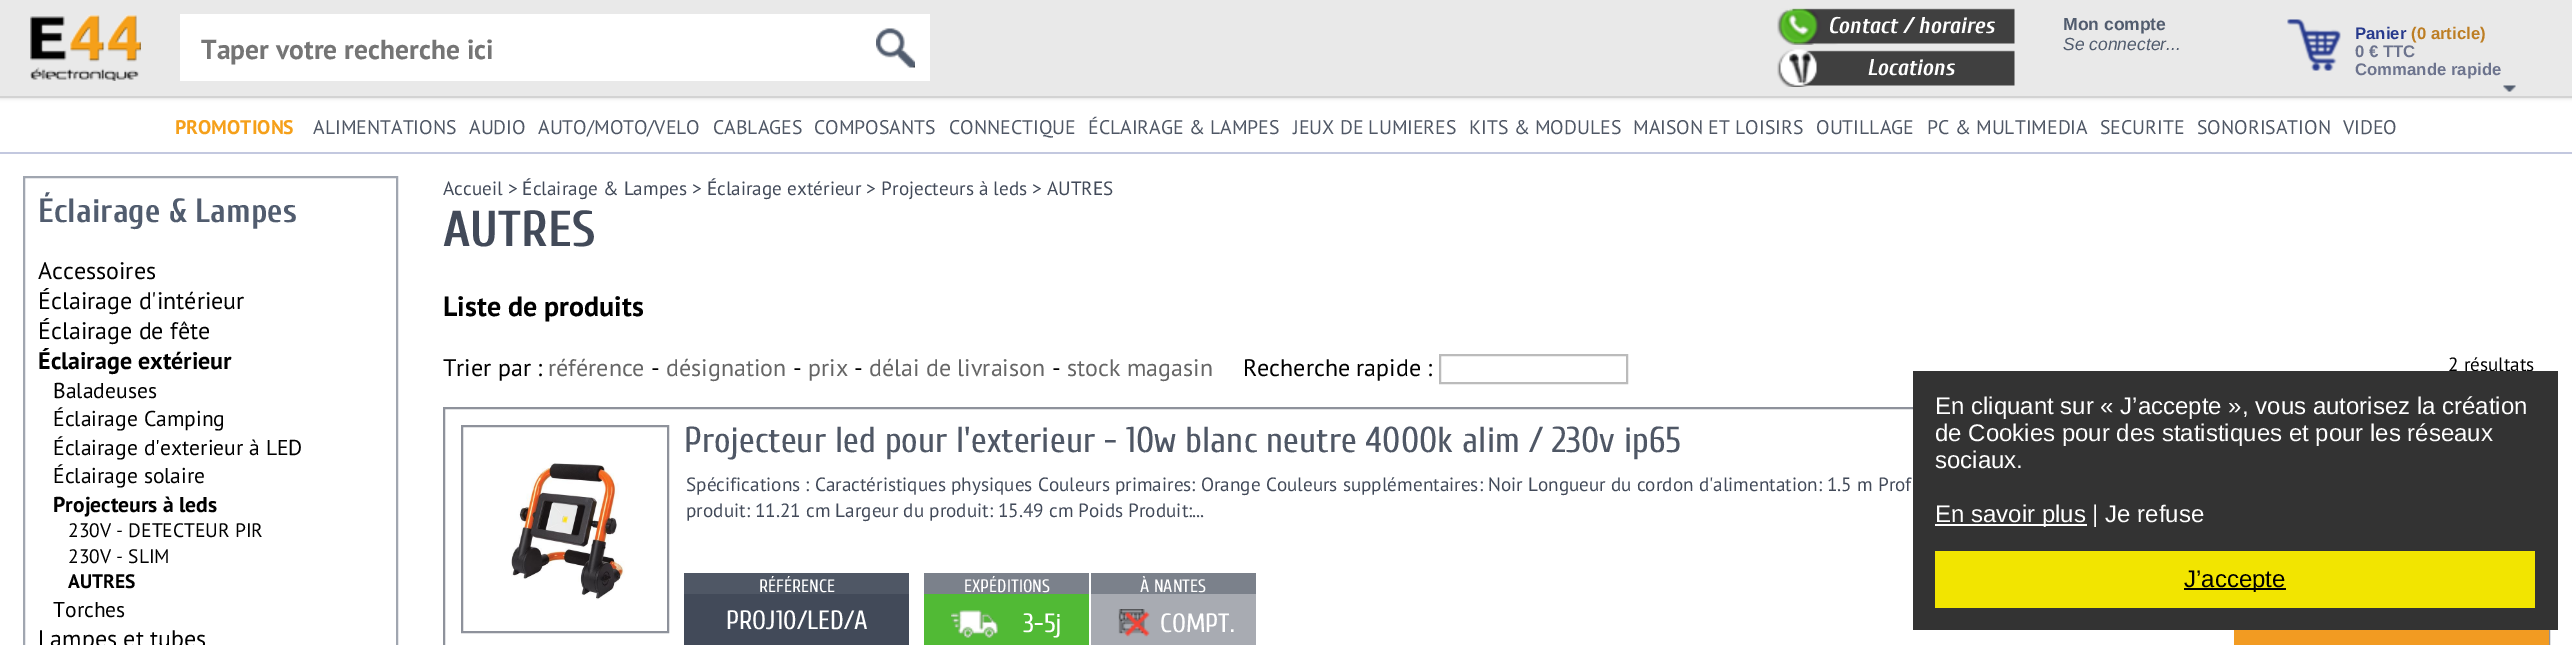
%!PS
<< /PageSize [2572 645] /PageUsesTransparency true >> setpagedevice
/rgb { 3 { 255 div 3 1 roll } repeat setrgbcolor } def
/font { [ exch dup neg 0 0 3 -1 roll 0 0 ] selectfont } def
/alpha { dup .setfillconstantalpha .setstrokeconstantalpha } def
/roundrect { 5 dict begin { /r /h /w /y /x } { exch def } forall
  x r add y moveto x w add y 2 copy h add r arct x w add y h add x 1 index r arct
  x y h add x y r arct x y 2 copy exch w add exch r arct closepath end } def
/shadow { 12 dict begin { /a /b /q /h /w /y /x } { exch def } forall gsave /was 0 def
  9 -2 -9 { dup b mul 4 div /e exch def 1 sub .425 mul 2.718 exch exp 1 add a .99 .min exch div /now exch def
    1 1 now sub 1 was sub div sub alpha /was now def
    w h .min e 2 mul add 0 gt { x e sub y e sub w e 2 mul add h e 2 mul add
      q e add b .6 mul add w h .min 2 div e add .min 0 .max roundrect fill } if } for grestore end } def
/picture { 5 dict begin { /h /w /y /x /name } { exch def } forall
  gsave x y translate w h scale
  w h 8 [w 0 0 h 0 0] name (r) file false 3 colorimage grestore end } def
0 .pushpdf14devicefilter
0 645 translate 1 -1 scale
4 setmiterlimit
255 255 255 rgb
0 0 2572 645 rectfill
211 211 211 rgb
0 0 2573 98 0 2 1 shadow
233 233 233 rgb
0 0 2572 96 rectfill
211 211 211 rgb
0 96 2572 2 rectfill
(img/1.rgb) 30 15 111 66 picture
255 255 255 rgb
180 14 750 67 rectfill
(img/2.rgb) 876 28 39 40 picture
(img/3.rgb) 1777 8 238 37 picture
(img/4.rgb) 1777 49 238 38 picture
(img/5.rgb) 2287 19 54 52 picture
(img/6.rgb) 2503 85 13 7 picture
195 200 223 rgb
0 152 2572 2 rectfill
160 166 176 rgb
2 setlinewidth
24 177 373 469 rectstroke
187 187 187 rgb
1440 355 187 28 rectstroke
142 146 155 rgb
444 408 2105 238 rectstroke
462 426 206 206 rectstroke
(img/7.rgb) 511 463 114 137 picture
[
  [684 594 225 51 66 74 89]
  [684 573 225 21 79 87 101]
  [924 594 165 51 81 186 53]
  [924 573 165 21 123 129 139]
] { aload pop rgb rectfill } forall
(img/8.rgb) 951 610 47 28 picture
168 171 178 rgb
1091 594 165 51 rectfill
123 129 139 rgb
1091 573 165 21 rectfill
(img/9.rgb) 1118 609 32 28 picture
242 155 34 rgb
2234 630 315 15 rectfill
/PTSans-Bold 27.6 font
117 117 117 rgb
201 59 moveto (Taper votre recherche ici) show
/Cuprum-BoldItalic 22.75 font
255 255 255 rgb
1828 33 moveto (Contact / horaires) show
1867 75 moveto (Locations) show
/LiberationSans-Bold 17.5 font
81 92 110 rgb
2063 30 moveto (Mon compte) show
/LiberationSans-Italic 17.5 font
2063 50 moveto (Se connecter...) show
/LiberationSans-Bold 16.75 font
39 58 141 rgb
2355 39 moveto (Panier) show
189 126 36 rgb
2411 39 moveto (\(0 article\)) show
108 115 141 rgb
2355 57 moveto (0 € TTC) show
2355 75 moveto (Commande rapide) show
/PTSans-Bold 19.75 font
245 160 26 rgb
175 134 moveto (PROMOTIONS) show
/PTSans-Regular 19.75 font
79 87 101 rgb
[
  [(ALIMENTATIONS) 313 134]
  [(AUDIO) 469 134]
  [(AUTO/MOTO/VELO) 538 134]
  [(CABLAGES) 713 134]
  [(COMPOSANTS) 814 134]
  [(CONNECTIQUE) 949 134]
  [(ÉCLAIRAGE & LAMPES) 1088 134]
  [(JEUX DE LUMIERES) 1293 134]
  [(KITS & MODULES) 1469 134]
  [(MAISON ET LOISIRS) 1633 134]
  [(OUTILLAGE) 1816 134]
  [(PC & MULTIMEDIA) 1927 134]
  [(SECURITE) 2100 134]
  [(SONORISATION) 2197 134]
  [(VIDEO) 2343 134]
] { aload pop moveto show } forall
/Cuprum-Bold 33.5 font
81 92 110 rgb
38 222 moveto (Éclairage & Lampes) show
/PTSans-Regular 24 font
0 0 0 rgb
[
  [(Accessoires) 38 279]
  [(Éclairage d'intérieur) 38 309]
  [(Éclairage de fête) 38 339]
] { aload pop moveto show } forall
/PTSans-Bold 24 font
38 369 moveto (Éclairage extérieur) show
/PTSans-Regular 21.6 font
[
  [(Baladeuses) 53 398]
  [(Éclairage Camping) 53 426]
  [(Éclairage d'exterieur à LED) 53 455]
  [(Éclairage solaire) 53 483]
] { aload pop moveto show } forall
/PTSans-Bold 21.6 font
53 512 moveto (Projecteurs à leds) show
/PTSans-Regular 19.5 font
68 537 moveto (230V - DETECTEUR PIR) show
68 563 moveto (230V - SLIM) show
/PTSans-Bold 19.5 font
68 588 moveto (AUTRES) show
/PTSans-Regular 21.6 font
53 617 moveto (Torches) show
/PTSans-Regular 24 font
38 647 moveto (Lampes et tubes) show
/PTSans-Regular 19.2 font
66 74 89 rgb
443 195 moveto (Accueil > Éclairage & Lampes > Éclairage extérieur > Projecteurs à leds > AUTRES) show
/Cuprum-Bold 50.5 font
443 246 moveto (AUTRES) show
/PTSans-Bold 28 font
0 0 0 rgb
443 316 moveto (Liste de produits) show
/PTSans-Regular 24 font
443 376 moveto (Trier par :) show
102 102 102 rgb
548 376 moveto (référence) show
0 0 0 rgb
651 376 moveto (-) show
102 102 102 rgb
666 376 moveto (désignation) show
0 0 0 rgb
793 376 moveto (-) show
102 102 102 rgb
808 376 moveto (prix) show
0 0 0 rgb
854 376 moveto (-) show
102 102 102 rgb
869 376 moveto (délai de livraison) show
0 0 0 rgb
1052 376 moveto (-) show
102 102 102 rgb
1067 376 moveto (stock magasin) show
0 0 0 rgb
1243 376 moveto (Recherche rapide :) show
/PTSans-Regular 19.2 font
2448 371 moveto (2 résultats) show
/Cuprum-Regular 36 font
79 87 101 rgb
684 452 moveto (Projecteur led pour l'exterieur - 10w blanc neutre 4000k alim / 230v ip65) show
/PTSans-Regular 19.2 font
66 74 89 rgb
686 491 moveto (Spécifications : Caractéristiques physiques Couleurs primaires: Orange Couleurs supplémentaires: Noir Longueur du cordon d'alimentation: 1.5 m Prof) show
686 517 moveto (produit: 11.21 cm Largeur du produit: 15.49 cm Poids Produit:...) show
/Cuprum-Regular 18 font
255 255 255 rgb
759 592 moveto (RÉFÉRENCE) show
/Cuprum-Regular 26.5 font
726 629 moveto (PROJ10/LED/A) show
/Cuprum-Regular 18 font
964 592 moveto (EXPÉDITIONS) show
/Cuprum-Regular 26.5 font
1023 632 moveto (3-5j) show
/Cuprum-Regular 18 font
1140 592 moveto (À NANTES) show
/Cuprum-Regular 26.5 font
1160 632 moveto (COMPT.) show
51 51 51 rgb
1913 371 645 259 rectfill
/LiberationSans-Regular 24 font
255 255 255 rgb
[
  [(En cliquant sur « J’accepte », vous autorisez la création) 1935 414]
  [(de Cookies pour des statistiques et pour les réseaux) 1935 441]
  [(sociaux.) 1935 468]
] { aload pop moveto show } forall
1935 524 152 2 rectfill
1935 522 moveto (En savoir plus | Je refuse) show
242 229 0 rgb
1935 551 600 57 rectfill
0 0 0 rgb
2184 588 102 2 rectfill
2184 587 moveto (J’accepte) show
.poppdf14devicefilter showpage
